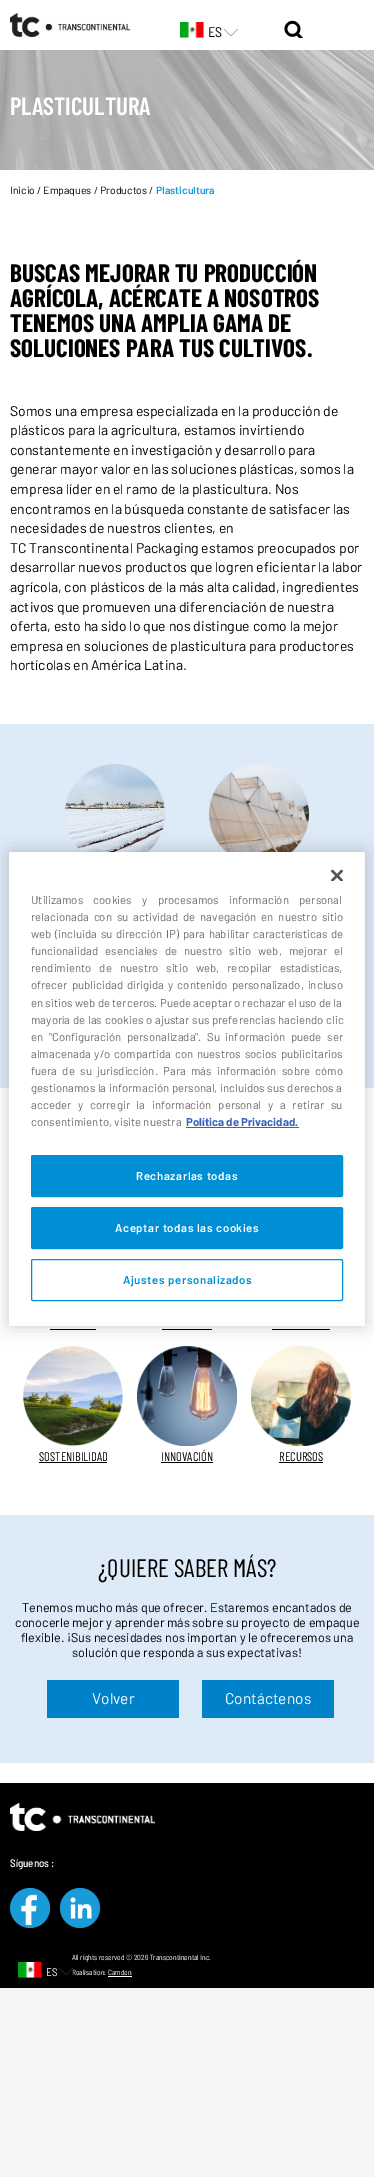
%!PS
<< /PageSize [374 2177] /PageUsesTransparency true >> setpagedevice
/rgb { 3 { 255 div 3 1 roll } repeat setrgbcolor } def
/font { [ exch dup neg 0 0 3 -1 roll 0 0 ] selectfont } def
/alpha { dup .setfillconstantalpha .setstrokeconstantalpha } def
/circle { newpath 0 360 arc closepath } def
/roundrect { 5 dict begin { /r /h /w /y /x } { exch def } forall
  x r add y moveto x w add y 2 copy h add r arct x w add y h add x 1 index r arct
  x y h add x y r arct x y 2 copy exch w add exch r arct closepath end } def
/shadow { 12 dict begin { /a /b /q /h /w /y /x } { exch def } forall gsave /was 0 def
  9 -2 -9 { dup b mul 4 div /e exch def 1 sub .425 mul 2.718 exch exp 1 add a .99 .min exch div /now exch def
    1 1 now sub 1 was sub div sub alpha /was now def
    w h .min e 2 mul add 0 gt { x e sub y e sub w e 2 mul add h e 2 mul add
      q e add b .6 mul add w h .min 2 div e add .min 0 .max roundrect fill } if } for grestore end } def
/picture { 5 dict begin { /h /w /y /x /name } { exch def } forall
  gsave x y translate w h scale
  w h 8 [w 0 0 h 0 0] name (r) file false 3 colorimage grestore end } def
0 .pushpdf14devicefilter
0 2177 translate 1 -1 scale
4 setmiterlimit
245 245 245 rgb
0 0 374 2177 rectfill
255 255 255 rgb
0 0 374 50 rectfill
(img/1.rgb) 10 13 120 24 picture
(img/2.rgb) 180 22 24 16 picture
(img/3.rgb) 224 29 14 7 picture
(img/4.rgb) 284 20 19 18 picture
0 170 374 1613 rectfill
(img/5.rgb) 0 50 374 120 picture
221 234 247 rgb
0 724 374 364 rectfill
(img/6.rgb) 65 764 100 88 picture
(img/7.rgb) 209 764 100 88 picture
[
  [50 1329 46 1 0 0 0]
  [162 1329 50 1 0 0 0]
  [272 1329 58 1 0 0 0]
] { aload pop rgb rectfill } forall
(img/8.rgb) 23 1346 100 100 picture
39 1462 68 1 rectfill
(img/9.rgb) 137 1346 100 100 picture
161 1462 52 1 rectfill
(img/10.rgb) 251 1346 100 100 picture
[
  [279 1462 44 1 0 0 0]
  [0 1515 374 248 221 234 247]
  [47 1680 132 38 0 130 202]
  [202 1680 132 38 0 130 202]
  [0 1783 374 205 0 0 0]
] { aload pop rgb rectfill } forall
(img/11.rgb) 10 1803 145 28 picture
25 154 217 rgb
30 1908 20 circle fill
(img/12.rgb) 10 1894 27 31 picture
80 1908 20 circle fill
(img/13.rgb) 70 1897 22 22 picture
(img/14.rgb) 18 1962 24 16 picture
255 255 255 rgb
108 1976 24 1 rectfill
0 0 0 rgb
9 852 356 474 2.5 9 0.2 shadow
255 255 255 rgb
9 852 356 474 2.5 roundrect fill
(img/16.rgb) 331 869 12 12 picture
56 96 190 rgb
186 1127 113 1 rectfill
0 143 213 rgb
31.5 1155.5 311 41 1.5 roundrect gsave fill grestore
stroke
31.5 1207.5 311 41 1.5 roundrect gsave fill grestore
stroke
31.5 1259.5 311 41 1.5 roundrect stroke
/BarlowSemiCondensed-Regular 14 font
0 0 0 rgb
208 37 moveto (ES) show
/BarlowCondensed-SemiBold 25 font
255 255 255 rgb
10 115 moveto (PLASTICULTURA) show
/Barlow-Regular 10.5 font
0 0 0 rgb
10 194 moveto (Inicio / Empaques / Productos /) show
/Barlow-SemiBold 10.5 font
25 154 217 rgb
156 194 moveto (Plasticultura) show
/BarlowCondensed-Bold 25.25 font
0 0 0 rgb
[
  [(BUSCAS MEJORAR TU PRODUCCIÓN) 10 282]
  [(AGRÍCOLA, ACÉRCATE A NOSOTROS) 10 307]
  [(TENEMOS UNA AMPLIA GAMA DE) 10 332]
  [(SOLUCIONES PARA TUS CULTIVOS.) 10 357]
] { aload pop moveto show } forall
/Barlow-Regular 14 font
[
  [(Somos una empresa especializada en la producción de) 10 416]
  [(plásticos para la agricultura, estamos invirtiendo) 10 435]
  [(constantemente en investigación y desarrollo para) 10 455]
  [(generar mayor valor en las soluciones plásticas, somos la) 10 474]
  [(empresa líder en el ramo de la plasticultura. Nos) 10 494]
  [(encontramos en la búsqueda constante de satisfacer las) 10 514]
  [(necesidades de nuestros clientes, en) 10 533]
  [(TC Transcontinental Packaging estamos preocupados por) 10 553]
  [(desarrollar nuevos productos que logren eficientar la labor) 10 572]
  [(agrícola, con plásticos de la más alta calidad, ingredientes) 10 592]
  [(activos que promueven una diferenciación de nuestra) 10 612]
  [(oferta, esto ha sido lo que nos distingue como la mejor) 10 631]
  [(empresa en soluciones de plasticultura para productores) 10 651]
  [(hortícolas en América Latina.) 10 670]
] { aload pop moveto show } forall
/BarlowCondensed-Regular 12.6 font
[
  [(SOSTENIBILIDAD) 39 1461]
  [(INNOVACIÓN) 161 1461]
  [(RECURSOS) 279 1461]
] { aload pop moveto show } forall
/BarlowCondensed-Regular 25.25 font
98 1577 moveto (¿QUIERE SABER MÁS?) show
/Barlow-Regular 12.6 font
[
  [(Tenemos mucho más que ofrecer. Estaremos encantados de) 22 1612]
  [(conocerle mejor y aprender más sobre su proyecto de empaque) 15 1627]
  [(flexible. ¡Sus necesidades nos importan y le ofreceremos una) 21 1642]
  [(solución que responda a sus expectativas!) 72 1657]
] { aload pop moveto show } forall
/Barlow-Regular 15.5 font
255 255 255 rgb
92 1704 moveto (Volver) show
225 1704 moveto (Contáctenos) show
/BarlowSemiCondensed-Medium 11 font
10 1867 moveto (Síguenos :) show
/BarlowSemiCondensed-Regular 11 font
46 1976 moveto (ES) show
/BarlowSemiCondensed-Regular 7.5 font
72 1960 moveto (All rights reserved © 2026 Transcontinental Inc.) show
72 1975 moveto (Realisation: Camden) show
(img/15.rgb) 59 1968 14 7 picture
/Barlow-Regular 11.4 font
105 105 105 rgb
31 904 moveto 8 0 32 (Utilizamos cookies y procesamos información personal) widthshow
31 921 moveto 2.5 0 32 (relacionada con su actividad de navegación en nuestro sitio) widthshow
31 938 moveto 1.5 0 32 (web \(incluida su dirección IP\) para habilitar características de) widthshow
31 955 moveto 4.75 0 32 (funcionalidad esenciales de nuestro sitio web, mejorar el) widthshow
31 972 moveto 5.75 0 32 (rendimiento de nuestro sitio web, recopilar estadísticas,) widthshow
31 989 moveto 1.75 0 32 (ofrecer publicidad dirigida y contenido personalizado, incluso) widthshow
31 1007 moveto (en sitios web de terceros. Puede aceptar o rechazar el uso de la) show
31 1024 moveto 0.5 0 32 (mayoría de las cookies o ajustar sus preferencias haciendo clic) widthshow
31 1041 moveto 3.25 0 32 (en "Configuración personalizada". Su información puede ser) widthshow
31 1058 moveto 1.5 0 32 (almacenada y/o compartida con nuestros socios publicitarios) widthshow
31 1075 moveto 3 0 32 (fuera de su jurisdicción. Para más información sobre cómo) widthshow
31 1092 moveto 0.5 0 32 (gestionamos la información personal, incluidos sus derechos a) widthshow
31 1109 moveto 4.5 0 32 (acceder y corregir la información personal y a retirar su) widthshow
31 1126 moveto (consentimiento, visite nuestra) show
/Barlow-Bold 11.4 font
56 96 190 rgb
186 1126 moveto (Política de Privacidad.) show
/Barlow-SemiBold 11.4 font
255 255 255 rgb
136 1180 moveto 0.6 0 (Rechazarlas todas) ashow
115 1232 moveto 0.6 0 (Aceptar todas las cookies) ashow
0 143 213 rgb
123 1284 moveto 0.6 0 (Ajustes personalizados) ashow
.poppdf14devicefilter showpage
